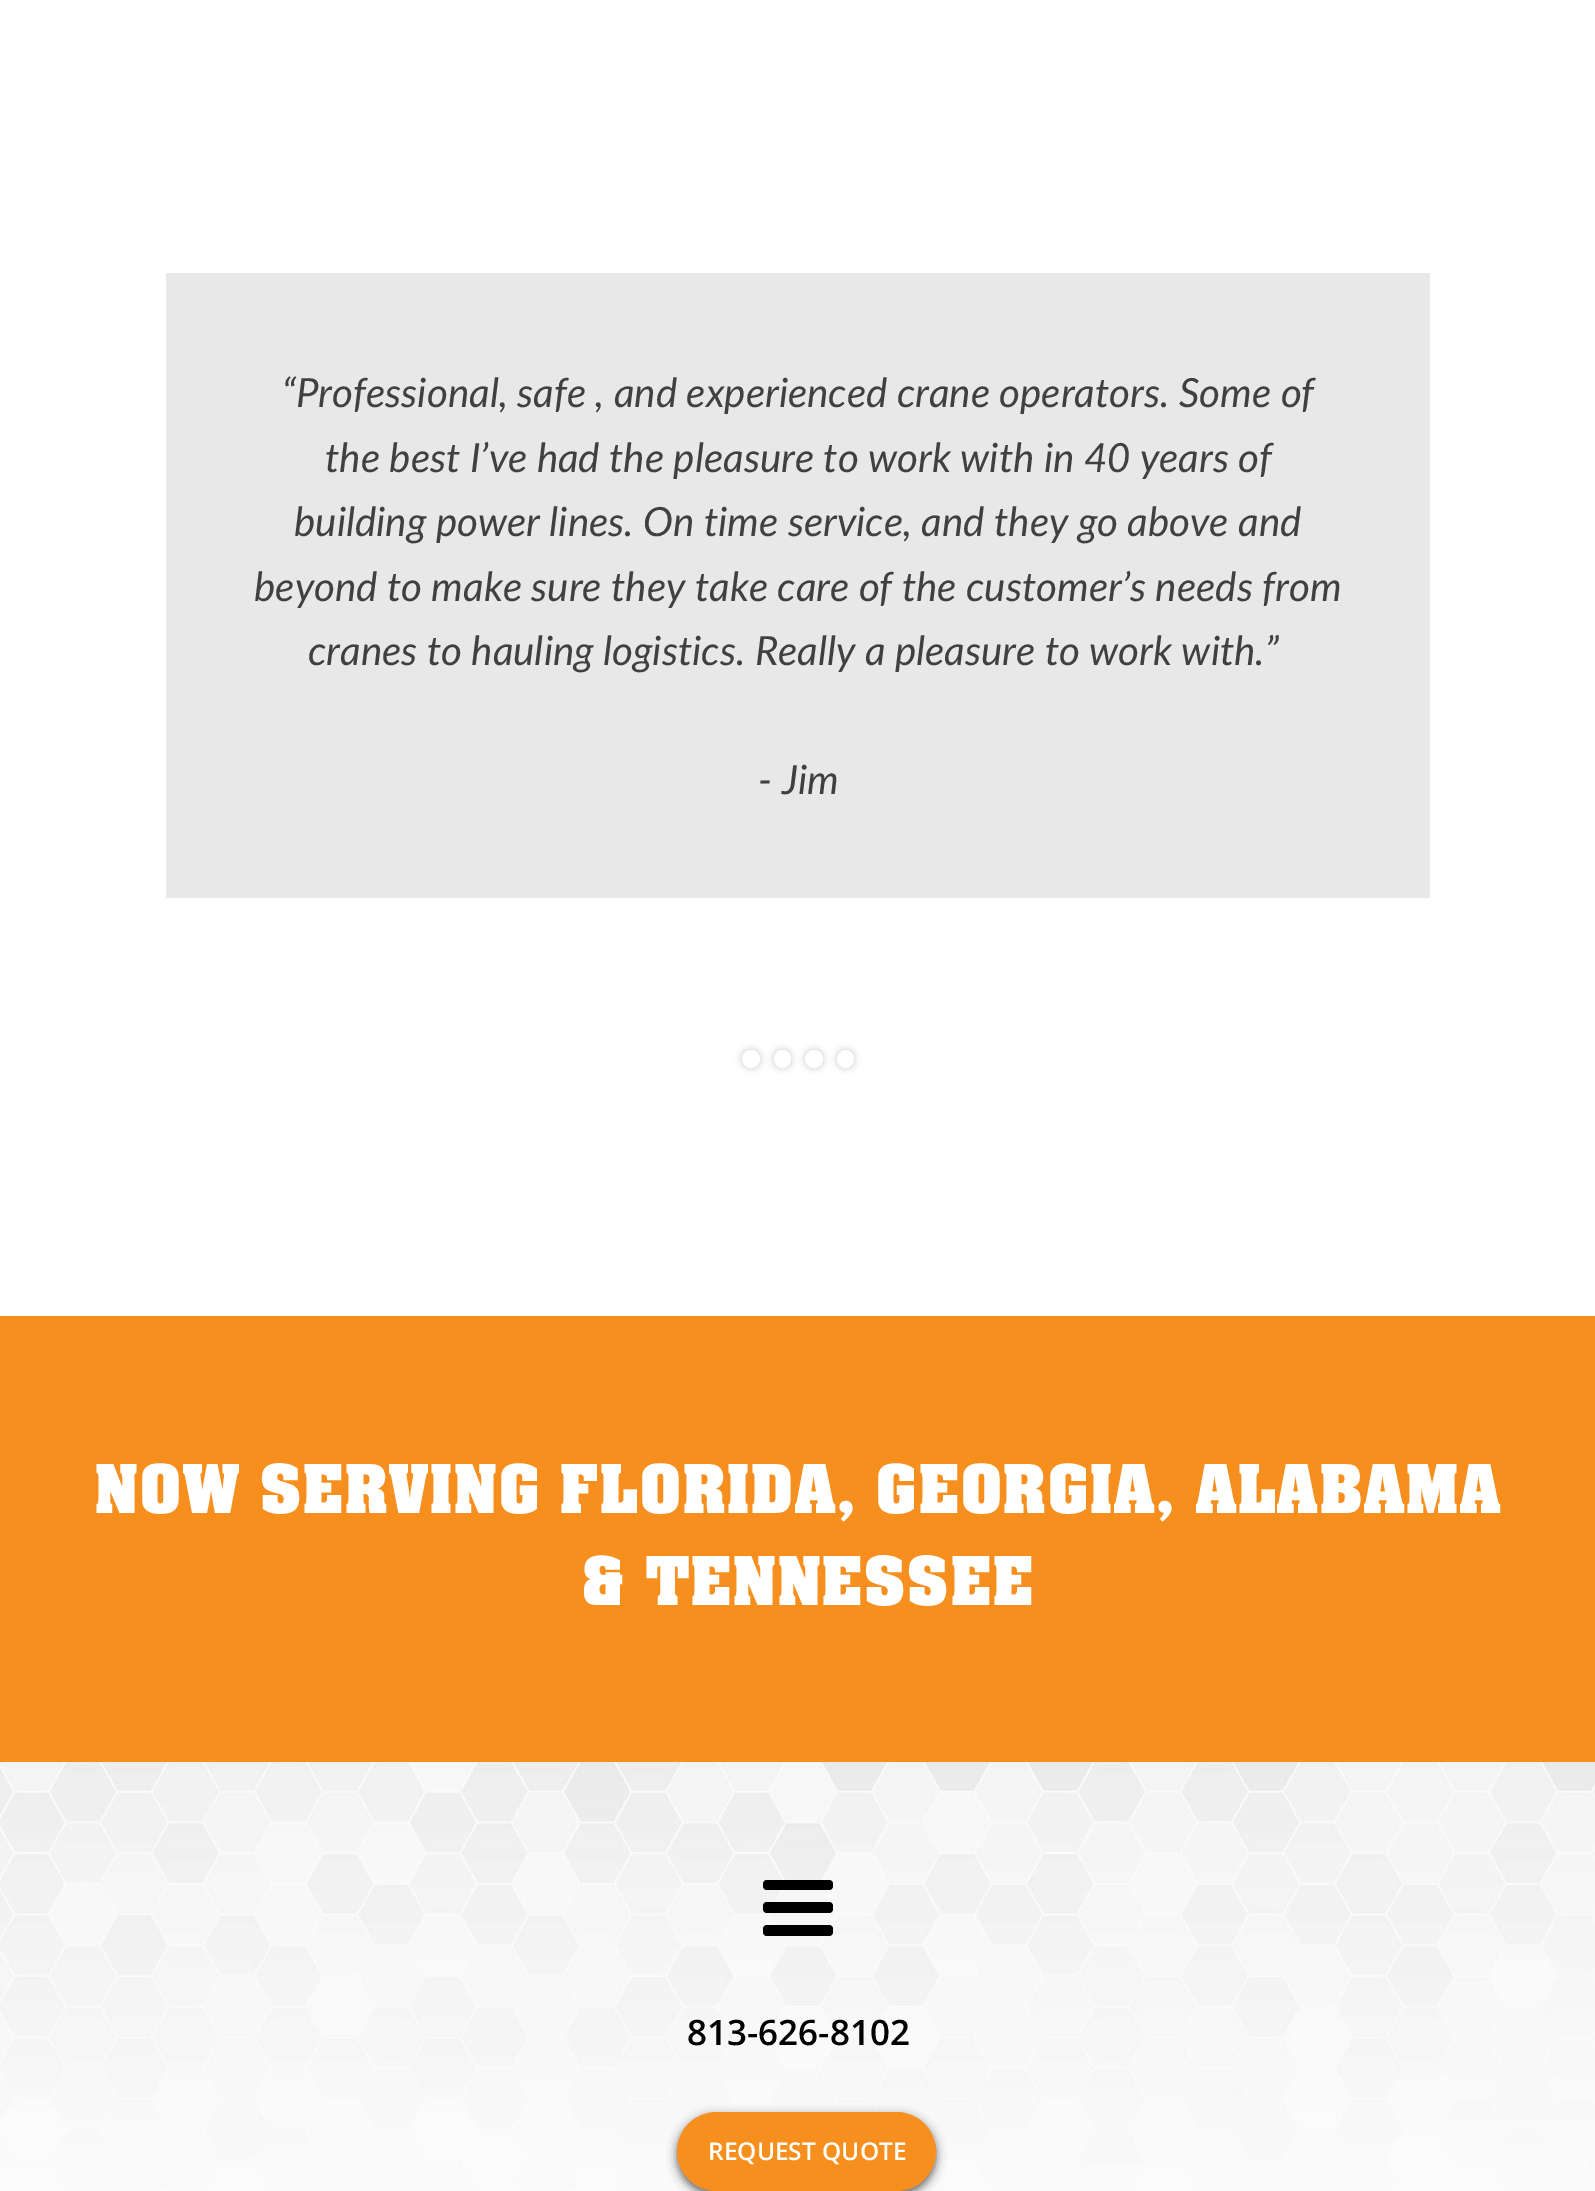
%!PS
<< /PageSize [1595 2191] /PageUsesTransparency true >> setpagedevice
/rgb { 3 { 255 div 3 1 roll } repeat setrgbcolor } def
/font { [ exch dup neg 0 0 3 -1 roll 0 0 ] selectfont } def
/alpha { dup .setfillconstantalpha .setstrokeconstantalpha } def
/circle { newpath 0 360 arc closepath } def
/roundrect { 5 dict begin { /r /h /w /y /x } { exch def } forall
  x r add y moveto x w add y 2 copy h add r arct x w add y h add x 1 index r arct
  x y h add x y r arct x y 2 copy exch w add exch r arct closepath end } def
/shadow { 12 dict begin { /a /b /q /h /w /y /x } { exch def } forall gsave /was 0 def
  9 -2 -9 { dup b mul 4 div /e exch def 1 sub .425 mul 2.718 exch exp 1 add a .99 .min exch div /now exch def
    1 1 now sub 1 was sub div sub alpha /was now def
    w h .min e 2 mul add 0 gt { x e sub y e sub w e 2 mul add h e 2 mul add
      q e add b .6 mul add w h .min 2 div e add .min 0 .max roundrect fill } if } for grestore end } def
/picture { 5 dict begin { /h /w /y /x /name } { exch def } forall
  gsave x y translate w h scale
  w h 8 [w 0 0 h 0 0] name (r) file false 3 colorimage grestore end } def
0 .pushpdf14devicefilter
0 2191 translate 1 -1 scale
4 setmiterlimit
255 255 255 rgb
0 0 1595 2191 rectfill
232 232 232 rgb
166 273 1264 625 rectfill
0 0 0 rgb
742 1050 18 18 9 3.5 0.2 shadow
255 255 255 rgb
751 1059 7 circle gsave fill grestore
4 setlinewidth
stroke
gsave
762 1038 moveto 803 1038 lineto 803 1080 lineto 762 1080 lineto closepath 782.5 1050 moveto 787 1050 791 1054 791 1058.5 curveto 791 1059.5 lineto 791 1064 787 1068 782.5 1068 curveto 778 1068 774 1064 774 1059.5 curveto 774 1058.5 lineto 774 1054 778 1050 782.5 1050 curveto closepath eoclip newpath
0 0 0 rgb
774 1050 17 18 8.5 3.5 0.2 shadow
grestore
776 1052 13 14 6.5 roundrect stroke
gsave
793 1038 moveto 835 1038 lineto 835 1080 lineto 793 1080 lineto closepath 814 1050 moveto 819 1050 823 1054 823 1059 curveto 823 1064 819 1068 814 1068 curveto 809 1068 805 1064 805 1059 curveto 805 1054 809 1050 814 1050 curveto closepath eoclip newpath
0 0 0 rgb
805 1050 18 18 9 3.5 0.2 shadow
grestore
814 1059 7 circle stroke
gsave
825 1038 moveto 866 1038 lineto 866 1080 lineto 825 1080 lineto closepath 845.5 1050 moveto 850 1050 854 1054 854 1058.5 curveto 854 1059.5 lineto 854 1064 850 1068 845.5 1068 curveto 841 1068 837 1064 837 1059.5 curveto 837 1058.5 lineto 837 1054 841 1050 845.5 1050 curveto closepath eoclip newpath
0 0 0 rgb
837 1050 17 18 8.5 3.5 0.2 shadow
grestore
839 1052 13 14 6.5 roundrect stroke
247 143 30 rgb
0 1316 1595 446 rectfill
(img/1.rgb) 0 1762 1595 429 picture
0 0 0 rgb
763 1880 70 10 4 roundrect fill
763 1902 70 11 4 roundrect fill
763 1925 70 11 4 roundrect fill
35 31 32 rgb
677 2116 259 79 39.5 5 0.7 shadow
247 143 30 rgb
678 2113 257 77 38.5 roundrect gsave fill grestore
2 setlinewidth
stroke
/Lato-Italic 40.25 font
64 64 64 rgb
[
  [(“Professional, safe , and experienced crane operators. Some of) 282 407]
  [(the best I’ve had the pleasure to work with in 40 years of) 325 472]
  [(building power lines. On time service, and they go above and) 294 536]
  [(beyond to make sure they take care of the customer’s needs from) 254 601]
  [(cranes to hauling logistics. Really a pleasure to work with.”) 308 665]
  [(- Jim) 758 794]
] { aload pop moveto show } forall
/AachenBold-Bold 73.5 font
255 255 255 rgb
94 1513 moveto (NOW SERVING FLORIDA, GEORGIA, ALABAMA) show
581 1605 moveto (& TENNESSEE) show
/OpenSans-SemiBold 35 font
0 0 0 rgb
687 2045 moveto (813-626-8102) show
/OpenSans-SemiBold 24.5 font
255 255 255 rgb
708 2160 moveto (REQUEST QUOTE) show
.poppdf14devicefilter showpage
